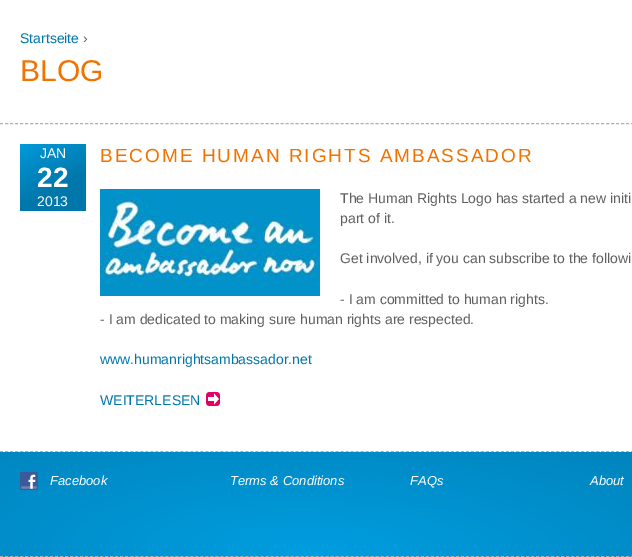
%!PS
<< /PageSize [632 557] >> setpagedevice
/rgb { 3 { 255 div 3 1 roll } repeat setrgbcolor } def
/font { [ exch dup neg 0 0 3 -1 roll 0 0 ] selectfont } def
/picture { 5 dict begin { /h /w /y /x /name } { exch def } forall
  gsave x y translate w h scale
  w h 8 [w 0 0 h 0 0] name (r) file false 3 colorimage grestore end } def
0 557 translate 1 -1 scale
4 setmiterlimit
255 255 255 rgb
0 0 632 557 rectfill
176 176 176 rgb
[3 2.01] 0 setdash
0 451.5 moveto 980 451.5 lineto stroke
0 123.5 moveto 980 123.5 lineto stroke
0 119 171 rgb
20 201 66 10 rectfill
(img/1.rgb) 20 144 66 57 picture
(img/2.rgb) 100 189 220 107 picture
(img/3.rgb) 206 392 14 14 picture
(img/4.rgb) 0 452 632 105 picture
176 176 176 rgb
0 556.5 moveto 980 556.5 lineto stroke
(img/5.rgb) 20 472 18 18 picture
/LiberationSans-Regular 14 font
0 119 171 rgb
20 43 moveto (Startseite) show
95 95 95 rgb
83 43 moveto (›) show
/LiberationSans-Regular 30 font
242 114 0 rgb
20 81 moveto (BLOG) show
/LiberationSans-Regular 14 font
255 255 255 rgb
40 158 moveto (JAN) show
/LiberationSans-Bold 28 font
37 187 moveto (22) show
/LiberationSans-Regular 14 font
37 206 moveto (2013) show
/LiberationSans-Regular 19 font
242 114 0 rgb
100 162 moveto 2 0 (BECOME HUMAN RIGHTS AMBASSADOR) ashow
/LiberationSans-Regular 14 font
95 95 95 rgb
[
  [(The Human Rights Logo has started a new initi) 340 203]
  [(part of it.) 340 223]
  [(Get involved, if you can subscribe to the followi) 340 263]
  [(- I am committed to human rights.) 340 304]
  [(- I am dedicated to making sure human rights are respected.) 100 324]
] { aload pop moveto show } forall
0 119 171 rgb
100 364 moveto (www.humanrightsambassador.net) show
100 405 moveto (WEITERLESEN) show
/LiberationSans-Italic 13 font
255 255 255 rgb
[
  [(Facebook) 50 485]
  [(Terms & Conditions) 230 485]
  [(FAQs) 410 485]
  [(About) 590 485]
] { aload pop moveto show } forall
showpage
